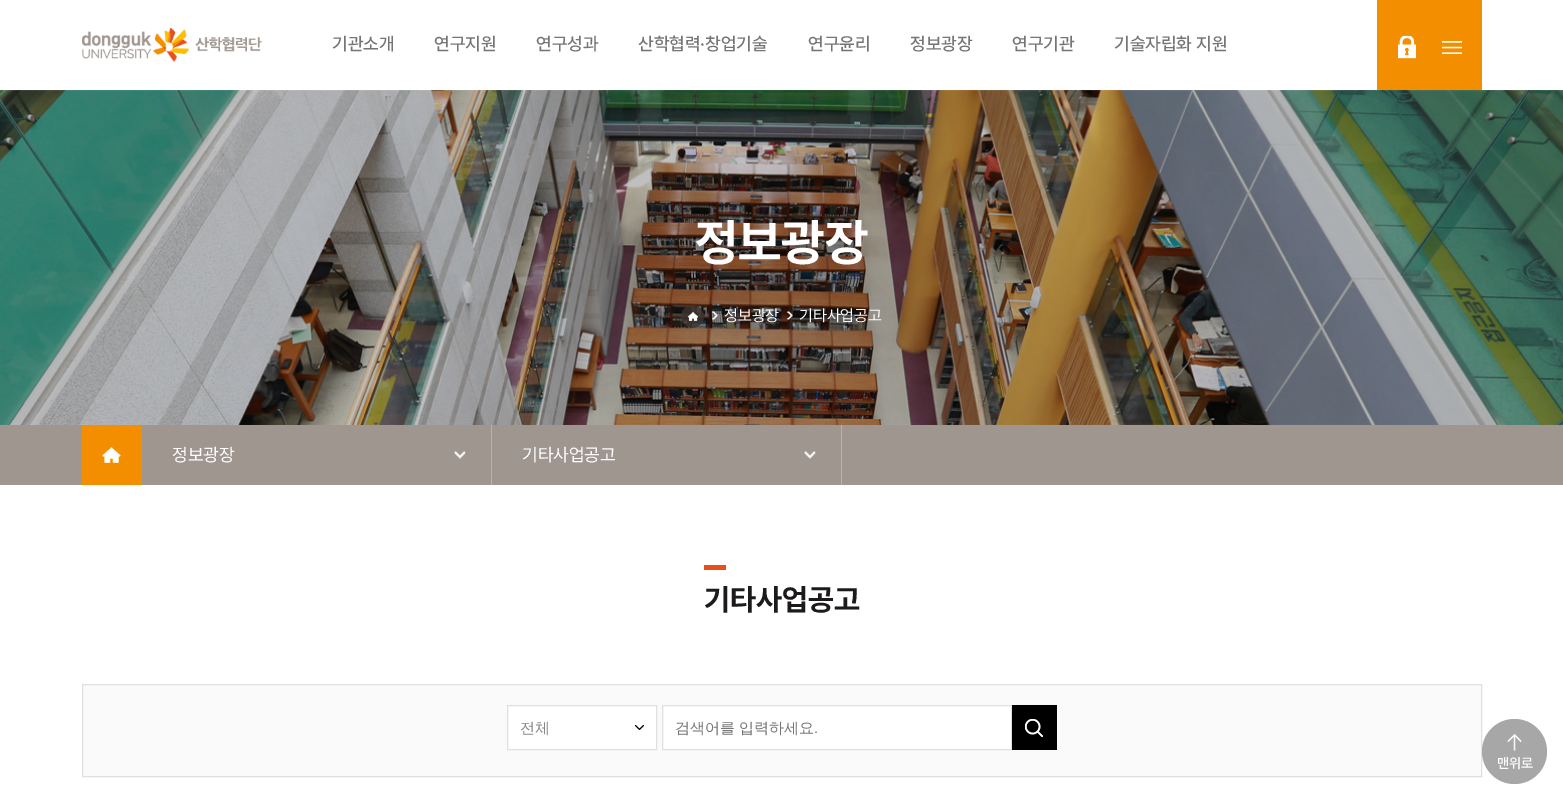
%!PS
<< /PageSize [1563 804] >> setpagedevice
/rgb { 3 { 255 div 3 1 roll } repeat setrgbcolor } def
/font { [ exch dup neg 0 0 3 -1 roll 0 0 ] selectfont } def
/circle { newpath 0 360 arc closepath } def
/picture { 5 dict begin { /h /w /y /x /name } { exch def } forall
  gsave x y translate w h scale
  w h 8 [w 0 0 h 0 0] name (r) file false 3 colorimage grestore end } def
0 804 translate 1 -1 scale
4 setmiterlimit
255 255 255 rgb
0 0 1563 804 rectfill
(img/1.rgb) 82 28 180 34 picture
242 142 0 rgb
1377 0 105 90 rectfill
(img/2.rgb) 1398 35 18 24 picture
(img/3.rgb) 1442 41 20 13 picture
(img/4.rgb) 0 90 1563 335 picture
(img/5.rgb) 681 305 23 23 picture
(img/6.rgb) 712 311 6 9 picture
(img/7.rgb) 787 311 6 9 picture
160 150 144 rgb
0 425 1563 60 rectfill
242 142 0 rgb
82 425 60 60 rectfill
(img/8.rgb) 102 447 19 16 picture
187 178 172 rgb
491 425 1 60 rectfill
(img/9.rgb) 454 451 12 8 picture
841 425 1 60 rectfill
(img/9.rgb) 804 451 12 8 picture
233 78 27 rgb
704 565 22 5 rectfill
250 250 250 rgb
82.5 684.5 moveto 1481.5 684.5 lineto 1481.5 776.5 lineto 82.5 776.5 lineto closepath gsave fill grestore
224 224 224 rgb
stroke
255 255 255 rgb
508 706 148 43 rectfill
(img/10.rgb) 635 725 9 5 picture
224 224 224 rgb
507.5 705.5 149 44 rectstroke
255 255 255 rgb
662.5 705.5 moveto 1011.5 705.5 lineto 1011.5 749.5 lineto 662.5 749.5 lineto closepath gsave fill grestore
224 224 224 rgb
stroke
0 0 0 rgb
1012 705 45 45 rectfill
(img/11.rgb) 1025 719 18 18 picture
167 167 167 rgb
1514.5 751.5 32.5 circle fill
(img/12.rgb) 1507 734 15 17 picture
/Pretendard-Medium 18 font
117 117 117 rgb
[
  [(기관소개) 332 50]
  [(연구지원) 434 50]
  [(연구성과) 536 50]
  [(산학협력·창업기술) 638 50]
  [(연구윤리) 808 50]
  [(정보광장) 910 50]
  [(연구기관) 1012 50]
  [(기술자립화 지원) 1114 50]
] { aload pop moveto show } forall
/Pretendard-Bold 50 font
255 255 255 rgb
695 260 moveto (정보광장) show
/Pretendard-Regular 16 font
724 321 moveto (정보광장) show
799 321 moveto (기타사업공고) show
/Pretendard-Regular 18 font
172 461 moveto (정보광장) show
522 461 moveto (기타사업공고) show
/Pretendard-Bold 30 font
28 26 26 rgb
704 610 moveto (기타사업공고) show
/WenQuanYiZenHei-Medium 15 font
136 136 136 rgb
520 733 moveto (전체) show
117 117 117 rgb
675 733 moveto (검색어를 입력하세요) show
/LiberationSans-Regular 15 font
814 733 moveto (.) show
/Pretendard-Medium 14 font
255 255 255 rgb
1497 768 moveto (맨위로) show
showpage
